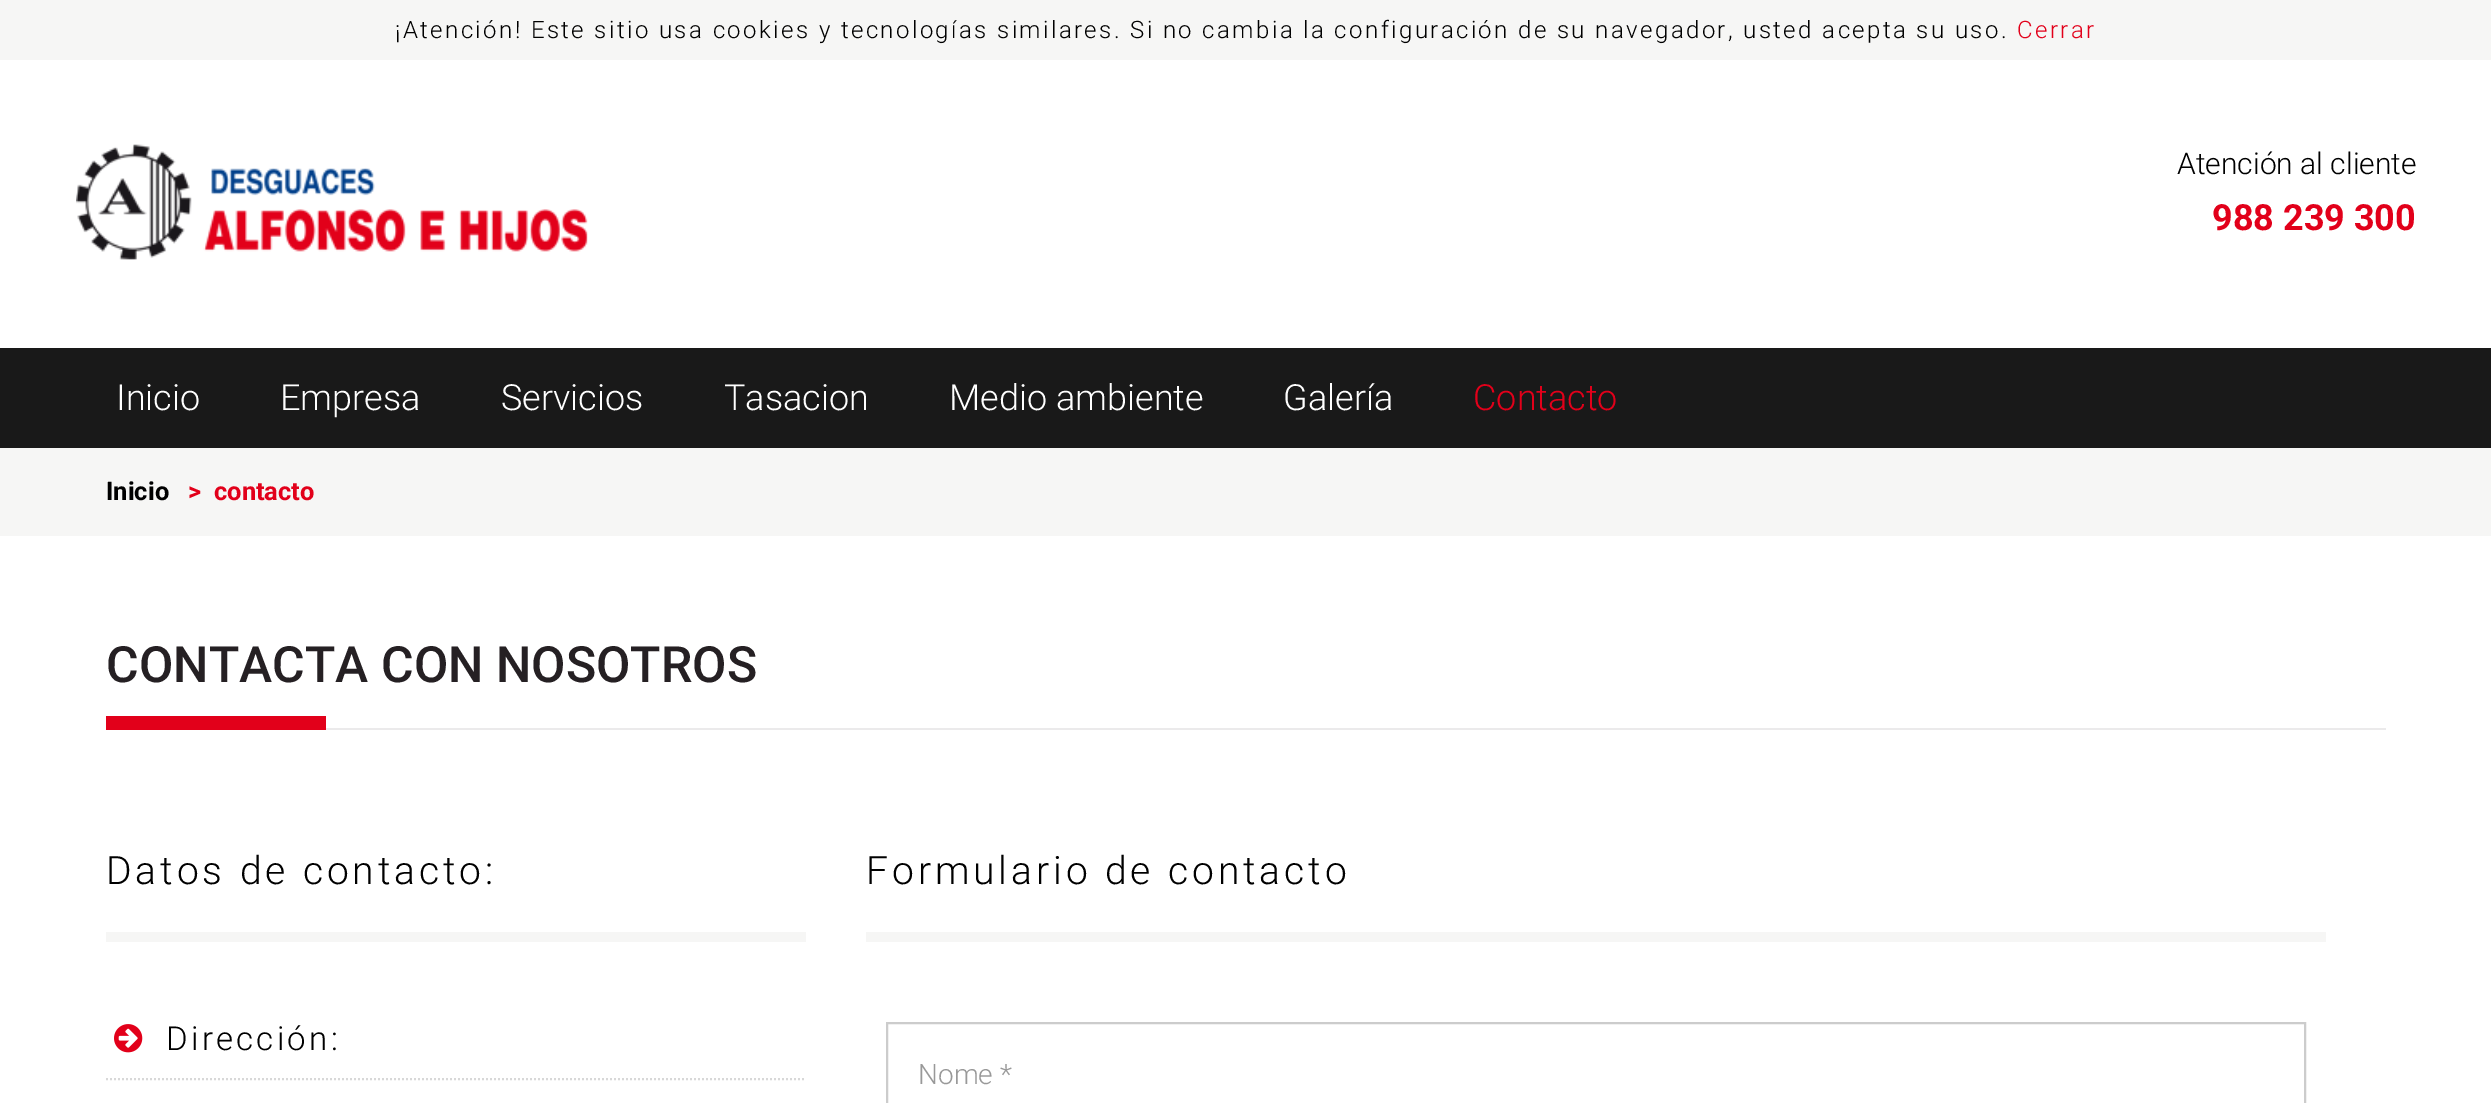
%!PS
<< /PageSize [2491 1103] >> setpagedevice
/rgb { 3 { 255 div 3 1 roll } repeat setrgbcolor } def
/font { [ exch dup neg 0 0 3 -1 roll 0 0 ] selectfont } def
/picture { 5 dict begin { /h /w /y /x /name } { exch def } forall
  gsave x y translate w h scale
  w h 8 [w 0 0 h 0 0] name (r) file false 3 colorimage grestore end } def
0 1103 translate 1 -1 scale
4 setmiterlimit
255 255 255 rgb
0 0 2491 1103 rectfill
246 246 245 rgb
0 0 2491 60 rectfill
(img/1.rgb) 76 144 512 116 picture
[
  [0 348 2491 100 25 25 25]
  [0 448 2491 88 246 246 245]
  [106 716 220 14 226 0 26]
  [326 728 2060 2 235 234 235]
  [106 932 700 10 246 246 245]
] { aload pop rgb rectfill } forall
216 216 216 rgb
2 setlinewidth
[2 2] 0 setdash
106 1079 moveto 806 1079 lineto stroke
(img/2.rgb) 114 1024 29 29 picture
246 246 245 rgb
866 932 1460 10 rectfill
204 204 204 rgb
[] 0 setdash
887 1023 1418 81 rectstroke
/Roboto-Light 24 font
0 0 0 rgb
395 38 moveto 2.4 0 (¡Atención! Este sitio usa cookies y tecnologías similares. Si no cambia la configuración de su navegador, usted acepta su uso.) ashow
226 0 26 rgb
2017 38 moveto 2.4 0 (Cerrar) ashow
/Roboto-Light 30 font
0 0 0 rgb
2177 174 moveto (Atención al cliente) show
/Roboto-Bold 36 font
226 0 26 rgb
2212 230 moveto (988 239 300) show
/Roboto-Light 36 font
255 255 255 rgb
[
  [(Inicio) 116 410]
  [(Empresa) 280 410]
  [(Servicios) 501 410]
  [(Tasacion) 724 410]
  [(Medio ambiente) 949 410]
  [(Galería) 1283 410]
] { aload pop moveto show } forall
226 0 26 rgb
1473 410 moveto (Contacto) show
/Roboto-Bold 25.5 font
0 0 0 rgb
106 500 moveto (Inicio) show
226 0 26 rgb
188 500 moveto (>  contacto) show
/Roboto-Medium 50 font
37 32 35 rgb
106 682 moveto (CONTACTA CON NOSOTROS) show
/Roboto-Light 39 font
0 0 0 rgb
106 884 moveto 3.9 0 (Datos de contacto:) ashow
/Roboto-Light 33 font
166 1050 moveto 3.25 0 (Dirección:) ashow
/Roboto-Light 39 font
866 884 moveto 3.9 0 (Formulario de contacto) ashow
/Roboto-Light 28 font
153 153 153 rgb
918 1084 moveto (Nome *) show
showpage
